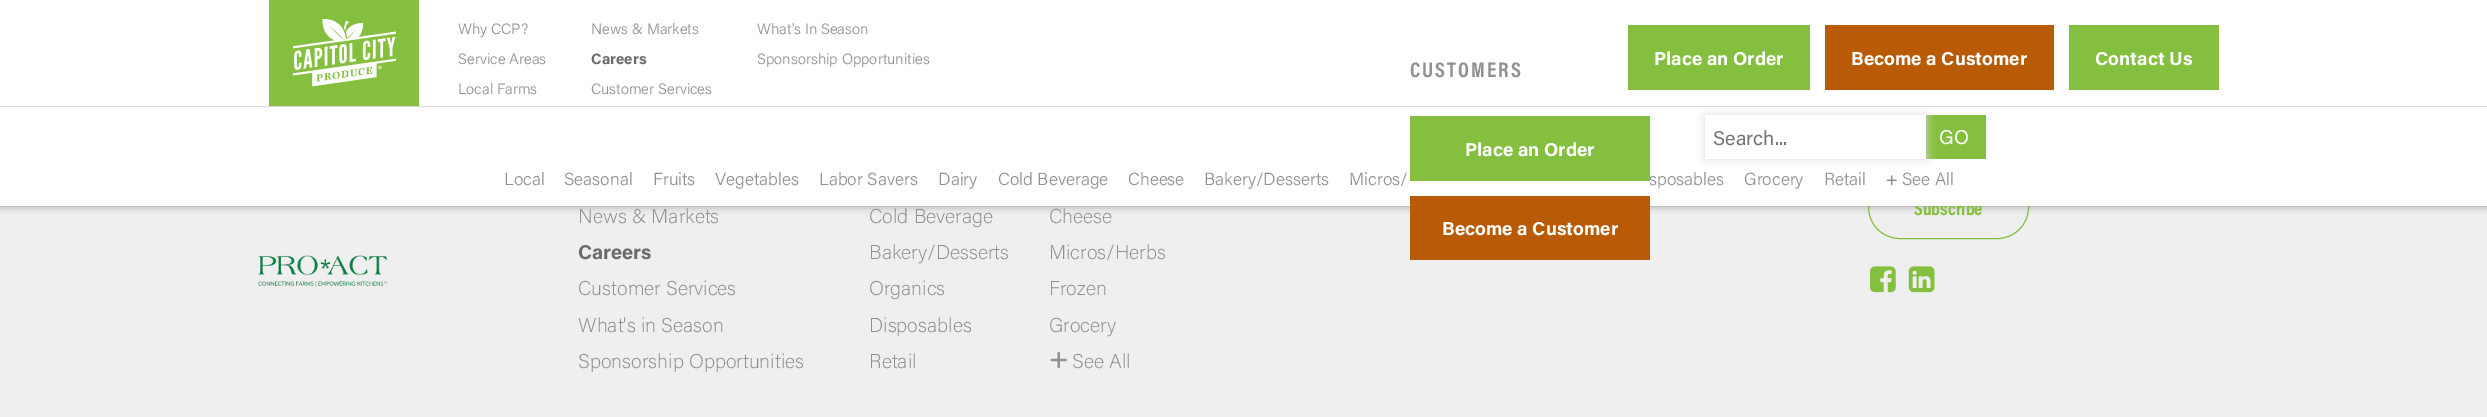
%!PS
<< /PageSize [2487 417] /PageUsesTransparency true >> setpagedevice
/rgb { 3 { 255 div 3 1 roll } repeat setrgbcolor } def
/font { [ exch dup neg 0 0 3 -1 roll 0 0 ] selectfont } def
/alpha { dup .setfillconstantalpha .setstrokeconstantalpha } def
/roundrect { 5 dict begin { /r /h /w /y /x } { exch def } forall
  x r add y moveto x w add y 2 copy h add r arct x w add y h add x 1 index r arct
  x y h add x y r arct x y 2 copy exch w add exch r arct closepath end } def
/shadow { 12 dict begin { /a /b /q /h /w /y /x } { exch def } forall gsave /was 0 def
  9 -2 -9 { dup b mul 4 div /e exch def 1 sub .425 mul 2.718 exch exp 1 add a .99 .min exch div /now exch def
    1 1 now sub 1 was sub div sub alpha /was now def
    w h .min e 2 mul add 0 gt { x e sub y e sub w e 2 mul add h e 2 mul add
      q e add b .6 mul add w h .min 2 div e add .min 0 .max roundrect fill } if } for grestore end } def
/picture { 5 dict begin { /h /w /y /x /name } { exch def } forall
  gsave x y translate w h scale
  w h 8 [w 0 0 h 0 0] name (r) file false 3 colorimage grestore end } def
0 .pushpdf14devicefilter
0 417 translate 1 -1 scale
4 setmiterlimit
239 239 239 rgb
0 0 2487 417 rectfill
133 191 63 rgb
1868.5 176.5 160 62 31 roundrect stroke
144 144 144 rgb
0 0 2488 206 0 4 1 shadow
(img/3.rgb) 258 255 130 32 picture
(img/4.rgb) 1050 351 17 18 picture
(img/5.rgb) 1870 266 26 27 picture
(img/6.rgb) 1908 266 27 27 picture
/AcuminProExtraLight-ExtraLight 20 font
578 223 moveto (News & Markets) show
/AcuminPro-Bold 20 font
107 107 107 rgb
578 259 moveto (Careers) show
/AcuminProExtraLight-ExtraLight 20 font
144 144 144 rgb
[
  [(Customer Services) 578 295]
  [(What's in Season) 578 332]
  [(Sponsorship Opportunities) 578 368]
  [(Cold Beverage) 869 223]
  [(Cheese) 1049 223]
  [(Bakery/Desserts) 869 259]
  [(Micros/Herbs) 1049 259]
  [(Organics) 869 295]
  [(Frozen) 1049 295]
  [(Disposables) 869 332]
  [(Grocery) 1049 332]
  [(Retail) 869 368]
  [(See All) 1072 368]
] { aload pop moveto show } forall
/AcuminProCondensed-Bold 18.75 font
133 191 63 rgb
1914 215 moveto (Subscribe) show
255 255 255 rgb
0 0 2487 206 rectfill
184 91 4 rgb
1410 196 240 64 rectfill
/AcuminPro-Bold 18.75 font
255 255 255 rgb
1442 235 moveto (Become a Customer) show
133 191 63 rgb
1926 115 60 44 rectfill
218 218 218 rgb
0 106 2487 1 rectfill
1705 115 221 44 0 5 1 shadow
/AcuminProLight-Light 17.5 font
144 144 144 rgb
1649 185 moveto (sposables) show
133 191 63 rgb
1410 116 240 65 rectfill
/AcuminPro-Bold 18.75 font
255 255 255 rgb
1465 156 moveto (Place an Order) show
/AcuminProCondensed-Bold 21.25 font
144 144 144 rgb
1410 77 moveto 2 0 (CUSTOMERS) ashow
/AcuminProLight-Light 17.5 font
1902 185 moveto (See All) show
(img/2.rgb) 1886 175 11 11 picture
[
  [(Retail) 1824 185]
  [(Grocery) 1744 185]
  [(Micros/) 1349 185]
  [(Bakery/Desserts) 1204 185]
  [(Cheese) 1128 185]
  [(Cold Beverage) 998 185]
  [(Dairy) 938 185]
  [(Labor Savers) 819 185]
  [(Vegetables) 715 185]
  [(Fruits) 653 185]
  [(Seasonal) 564 185]
  [(Local) 504 185]
] { aload pop moveto show } forall
/AcuminPro-Regular 20 font
255 255 255 rgb
1939 144 moveto (GO) show
1705 115 221 44 rectfill
117 117 117 rgb
1713 145 moveto (Search...) show
/AcuminProLight-Light 15 font
144 144 144 rgb
[
  [(Sponsorship Opportunities) 757 64]
  [(What's In Season) 757 34]
  [(Customer Services) 591 94]
] { aload pop moveto show } forall
/AcuminPro-Bold 15 font
107 107 107 rgb
591 64 moveto (Careers) show
/AcuminProLight-Light 15 font
144 144 144 rgb
[
  [(News & Markets) 591 34]
  [(Local Farms) 458 94]
  [(Service Areas) 458 64]
  [(Why CCP?) 458 34]
] { aload pop moveto show } forall
133 191 63 rgb
2069 25 150 65 rectfill
/AcuminPro-Bold 18.75 font
255 255 255 rgb
2095 65 moveto (Contact Us) show
184 91 4 rgb
1825 25 229 65 rectfill
255 255 255 rgb
1851 65 moveto (Become a Customer) show
133 191 63 rgb
1628 25 182 65 rectfill
255 255 255 rgb
1654 65 moveto (Place an Order) show
133 191 63 rgb
269 0 150 106 rectfill
(img/1.rgb) 293 19 103 68 picture
.poppdf14devicefilter showpage
